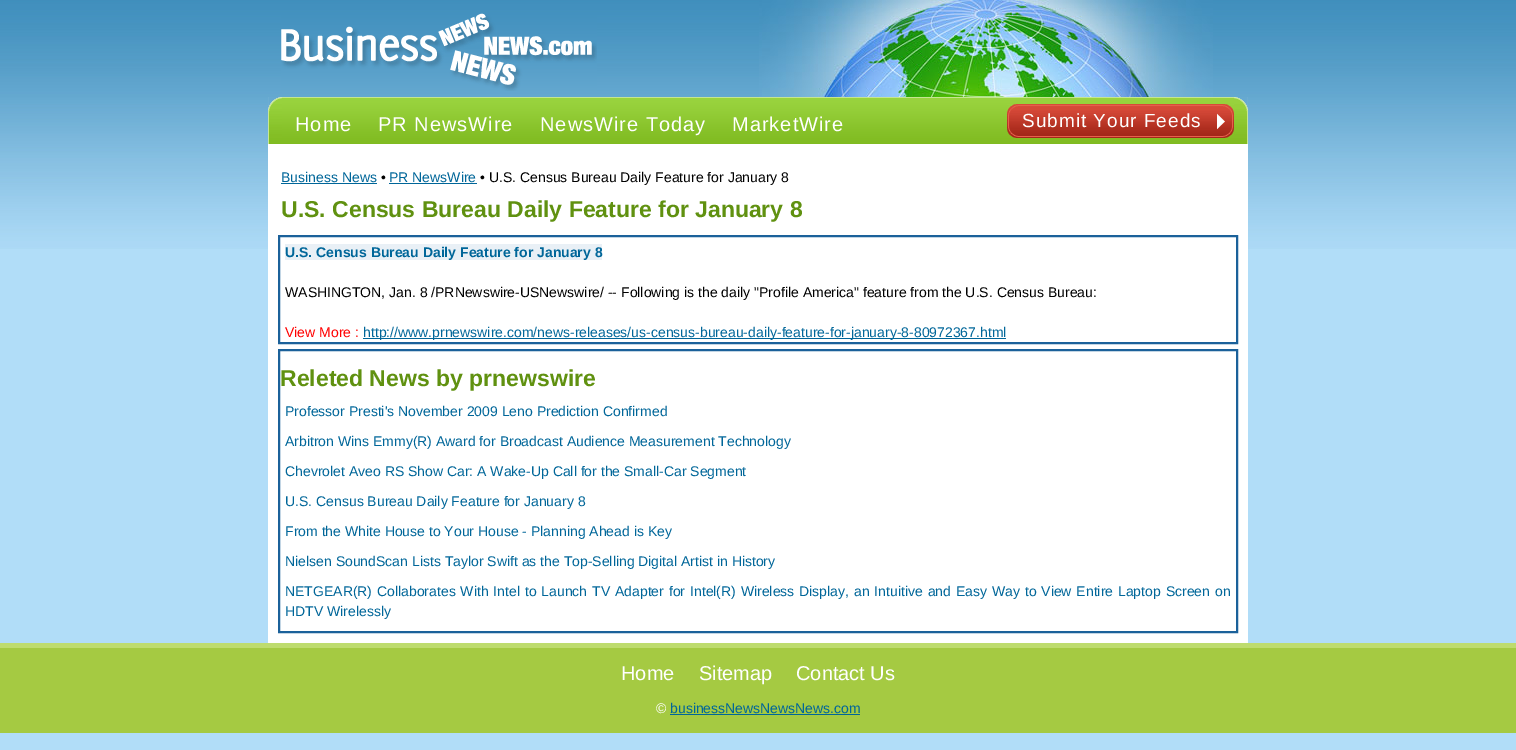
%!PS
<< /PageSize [1516 750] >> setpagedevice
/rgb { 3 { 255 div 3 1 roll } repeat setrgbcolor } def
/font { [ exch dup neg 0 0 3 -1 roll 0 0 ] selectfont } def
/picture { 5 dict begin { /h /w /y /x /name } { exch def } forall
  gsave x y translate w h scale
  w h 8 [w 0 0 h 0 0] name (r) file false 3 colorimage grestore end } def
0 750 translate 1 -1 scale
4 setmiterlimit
177 221 248 rgb
0 0 1516 750 rectfill
(img/1.rgb) 0 0 1516 249 picture
(img/2.rgb) 281 13 316 78 picture
(img/3.rgb) 759 0 454 97 picture
(img/4.rgb) 268 97 14 47 picture
(img/5.rgb) 282 97 952 47 picture
(img/6.rgb) 1007 104 227 34 picture
(img/7.rgb) 1234 97 14 47 picture
[
  [268 144 980 499 255 255 255]
  [281 183 96 1 0 102 153]
  [389 183 88 1 0 102 153]
] { aload pop rgb rectfill } forall
27 97 154 rgb
2 setlinewidth
279 236 958 107 rectstroke
233 240 246 rgb
285 244 317 16 rectfill
0 102 153 rgb
363 338 643 1 rectfill
27 97 154 rgb
279 350 958 282 rectstroke
[
  [0 643 1516 5 190 220 110]
  [0 648 1516 85 165 202 66]
  [670 714 190 1 0 102 153]
] { aload pop rgb rectfill } forall
/LiberationSans-Regular 20 font
255 255 255 rgb
295 131 moveto 1 0 (Home) ashow
378 131 moveto 1 0 (PR NewsWire) ashow
540 131 moveto 1 0 (NewsWire Today) ashow
732 131 moveto 1 0 (MarketWire) ashow
/LiberationSans-Regular 19 font
1022 127 moveto 1 0 (Submit Your Feeds) ashow
/LiberationSans-Regular 14 font
0 102 153 rgb
281 182 moveto (Business News) show
0 0 0 rgb
381 182 moveto (•) show
0 102 153 rgb
389 182 moveto (PR NewsWire) show
0 0 0 rgb
480 182 moveto (• U.S. Census Bureau Daily Feature for January 8) show
/LiberationSans-Bold 23 font
96 145 16 rgb
281 217 moveto (U.S. Census Bureau Daily Feature for January 8) show
/LiberationSans-Bold 14 font
0 102 153 rgb
285 257 moveto (U.S. Census Bureau Daily Feature for January 8) show
/LiberationSans-Regular 14 font
0 0 0 rgb
285 297 moveto (WASHINGTON, Jan. 8 /PRNewswire-USNewswire/ -- Following is the daily "Profile America" feature from the U.S. Census Bureau:) show
255 0 0 rgb
285 337 moveto (View More :) show
0 102 153 rgb
363 337 moveto (http://www.prnewswire.com/news-releases/us-census-bureau-daily-feature-for-january-8-80972367.html) show
/LiberationSans-Bold 23 font
96 145 16 rgb
280 386 moveto (Releted News by prnewswire) show
/LiberationSans-Regular 14 font
0 102 153 rgb
[
  [(Professor Presti's November 2009 Leno Prediction Confirmed) 285 416]
  [(Arbitron Wins Emmy\(R\) Award for Broadcast Audience Measurement Technology) 285 446]
  [(Chevrolet Aveo RS Show Car: A Wake-Up Call for the Small-Car Segment) 285 476]
  [(U.S. Census Bureau Daily Feature for January 8) 285 506]
  [(From the White House to Your House - Planning Ahead is Key) 285 536]
  [(Nielsen SoundScan Lists Taylor Swift as the Top-Selling Digital Artist in History) 285 566]
] { aload pop moveto show } forall
285 596 moveto 1 0 32 (NETGEAR\(R\) Collaborates With Intel to Launch TV Adapter for Intel\(R\) Wireless Display, an Intuitive and Easy Way to View Entire Laptop Screen on) widthshow
285 616 moveto (HDTV Wirelessly) show
/LiberationSans-Regular 20 font
255 255 255 rgb
[
  [(Home) 621 680]
  [(Sitemap) 699 680]
  [(Contact Us) 796 680]
] { aload pop moveto show } forall
/LiberationSans-Regular 14 font
656 713 moveto (©) show
0 102 153 rgb
670 713 moveto (businessNewsNewsNews.com) show
showpage
